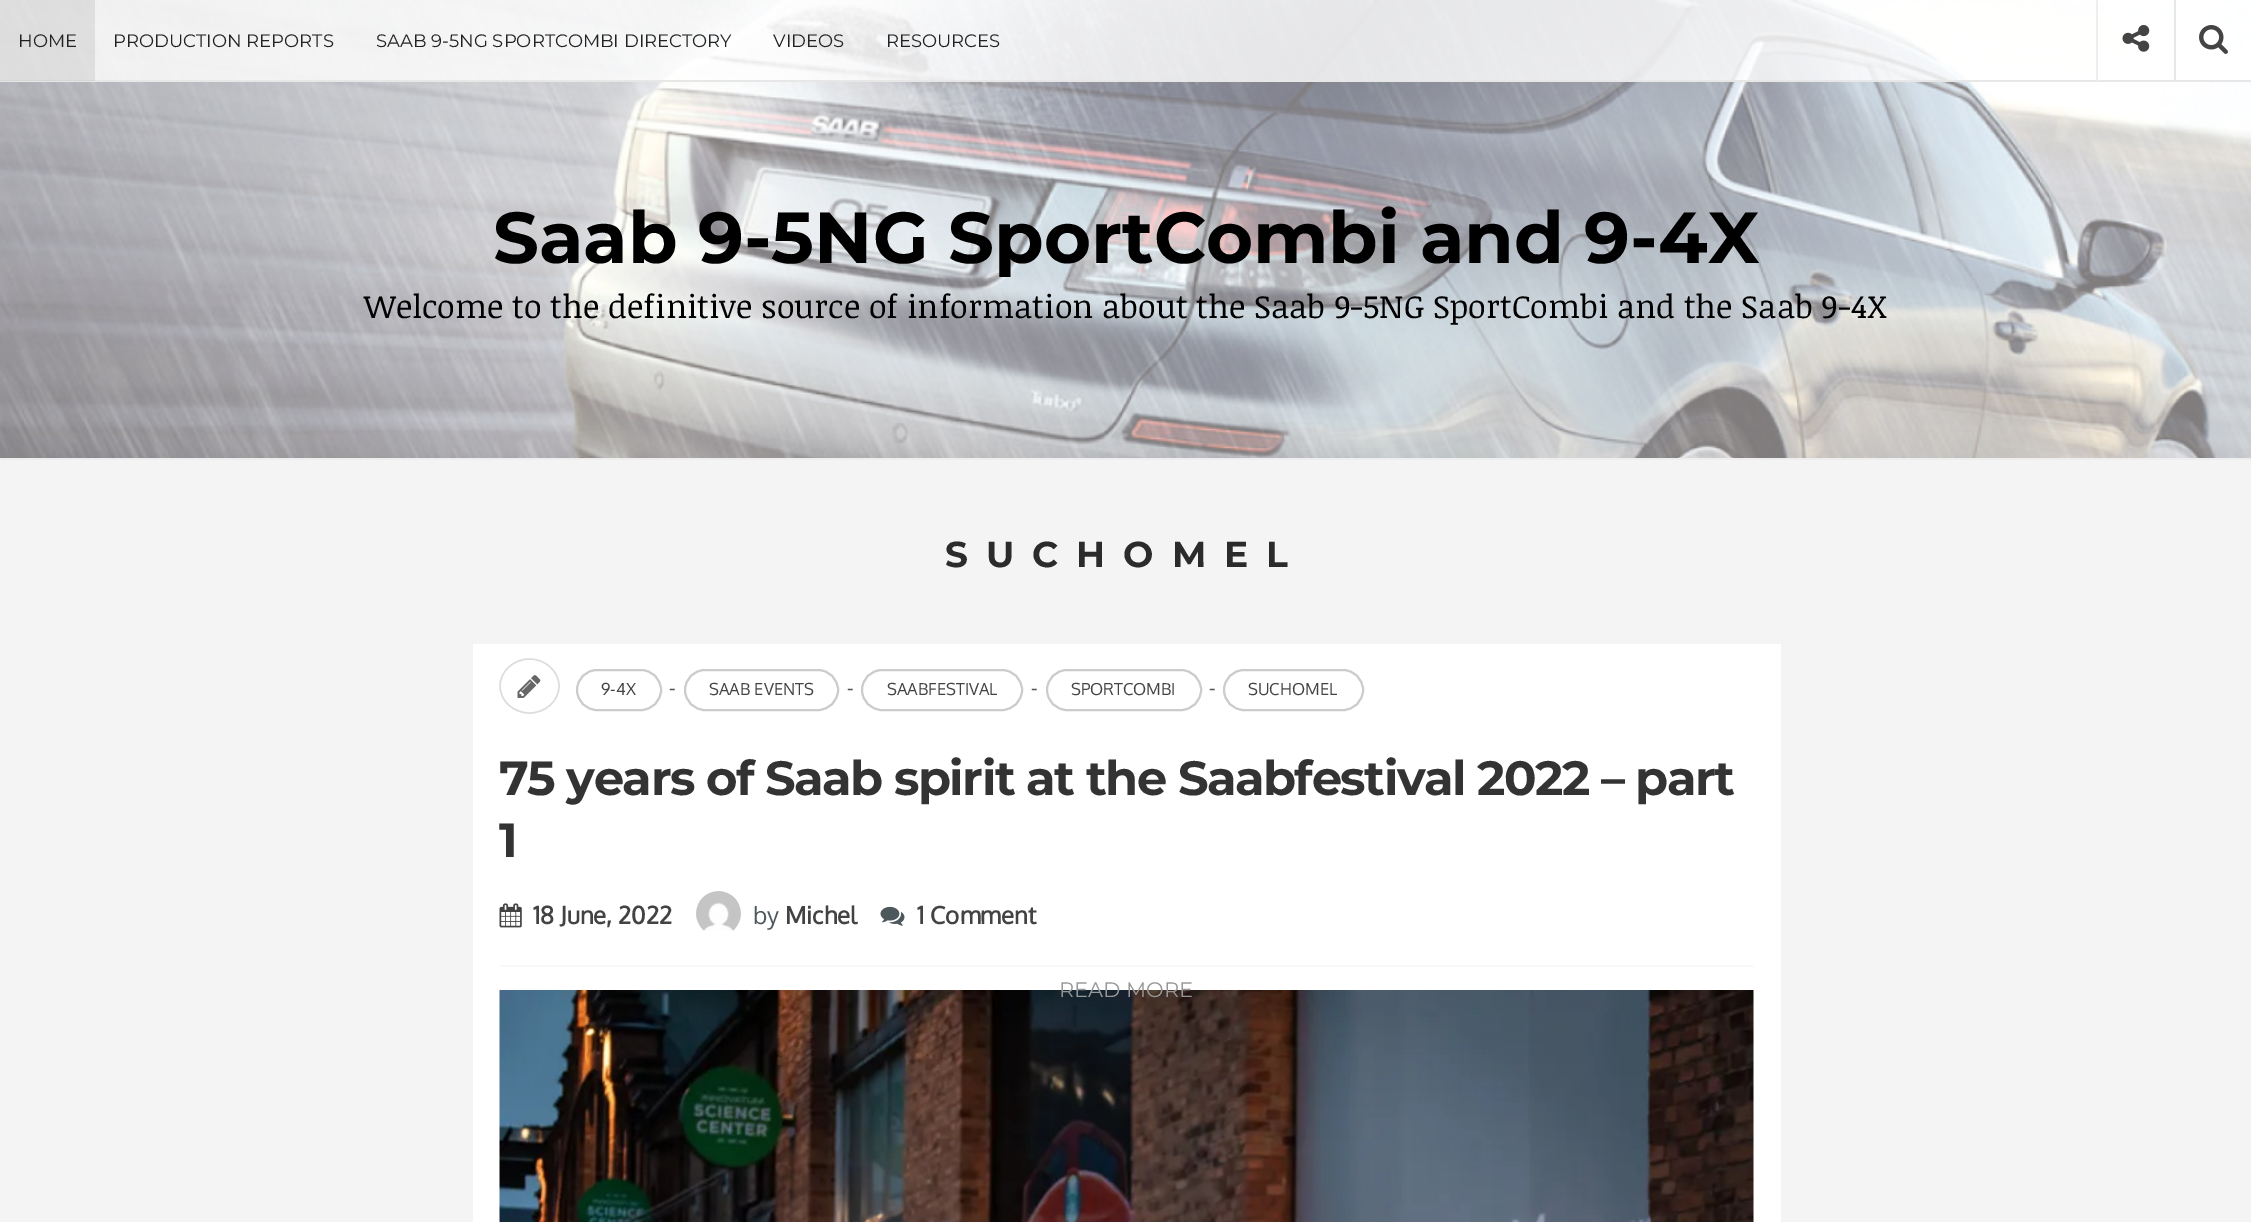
%!PS
<< /PageSize [2251 1222] /PageUsesTransparency true >> setpagedevice
/rgb { 3 { 255 div 3 1 roll } repeat setrgbcolor } def
/font { [ exch dup neg 0 0 3 -1 roll 0 0 ] selectfont } def
/alpha { dup .setfillconstantalpha .setstrokeconstantalpha } def
/roundrect { 5 dict begin { /r /h /w /y /x } { exch def } forall
  x r add y moveto x w add y 2 copy h add r arct x w add y h add x 1 index r arct
  x y h add x y r arct x y 2 copy exch w add exch r arct closepath end } def
/picture { 5 dict begin { /h /w /y /x /name } { exch def } forall
  gsave x y translate w h scale
  w h 8 [w 0 0 h 0 0] name (r) file false 3 colorimage grestore end } def
0 .pushpdf14devicefilter
0 1222 translate 1 -1 scale
4 setmiterlimit
244 244 245 rgb
0 0 2251 1222 rectfill
(img/1.rgb) 0 0 2251 458 picture
0.8 alpha
[
  [0 0 2251 80 255 255 255]
] { aload pop rgb rectfill } forall
1 alpha
[
  [0 80 2251 2 231 231 231]
] { aload pop rgb rectfill } forall
0.08 alpha
[
  [0 0 95 81 0 0 0]
] { aload pop rgb rectfill } forall
1 alpha
[
  [2096 0 2 81 238 238 238]
] { aload pop rgb rectfill } forall
(img/2.rgb) 2122 25 28 27 picture
231 231 231 rgb
2174 0 2 81 rectfill
(img/3.rgb) 2199 25 29 29 picture
238 238 238 rgb
0 458 2251 2 rectfill
255 255 255 rgb
473 644 1308 578 rectfill
221 221 221 rgb
1.5 setlinewidth
529.5 659 moveto 545.5 659 559 671.5 559 686 curveto 559 701 545.5 713 529.5 713 curveto 513.5 713 500 701 500 686 curveto 500 671.5 513.5 659 529.5 659 curveto closepath stroke
(img/4.rgb) 517 675 24 23 picture
204 204 204 rgb
2 setlinewidth
577 670 84 40 20 roundrect stroke
685 670 153 40 20 roundrect stroke
862 670 160 40 20 roundrect stroke
1047 670 154 40 20 roundrect stroke
1224 670 139 40 20 roundrect stroke
249 249 249 rgb
500 965 1254 2 rectfill
(img/5.rgb) 499 903 23 25 picture
(img/6.rgb) 696 891 45 40 picture
(img/7.rgb) 880 906 25 20 picture
(img/8.rgb) 499 990 1255 232 picture
/Montserrat-Regular 18 font
34 34 34 rgb
[
  [(HOME) 18 47]
  [(PRODUCTION REPORTS) 113 47]
  [(SAAB 9-5NG SPORTCOMBI DIRECTORY) 376 47]
  [(VIDEOS) 773 47]
  [(RESOURCES) 886 47]
] { aload pop moveto show } forall
/Montserrat-Bold 72 font
0 0 0 rgb
493 263 moveto (Saab 9-5NG SportCombi and 9-4X) show
/NoticiaText-Regular 32.4 font
364 318 moveto (Welcome to the definitive source of information about the Saab 9-5NG SportCombi and the Saab 9-4X) show
/Montserrat-Bold 36 font
43 43 43 rgb
945 567 moveto 18 0 (SUCHOMEL) ashow
/Oxygen-Regular 16.5 font
67 67 67 rgb
601 695 moveto (9-4X) show
/Oxygen-Regular 20 font
76 88 92 rgb
669 695 moveto (-) show
/Oxygen-Regular 16.5 font
67 67 67 rgb
709 695 moveto (SAAB EVENTS) show
/Oxygen-Regular 20 font
76 88 92 rgb
847 695 moveto (-) show
/Oxygen-Regular 16.5 font
67 67 67 rgb
887 695 moveto (SAABFESTIVAL) show
/Oxygen-Regular 20 font
76 88 92 rgb
1031 695 moveto (-) show
/Oxygen-Regular 16.5 font
67 67 67 rgb
1071 695 moveto (SPORTCOMBI) show
/Oxygen-Regular 20 font
76 88 92 rgb
1209 695 moveto (-) show
/Oxygen-Regular 16.5 font
67 67 67 rgb
1248 695 moveto (SUCHOMEL) show
/Montserrat-Bold 48 font
51 51 51 rgb
499 795 moveto -1.5 0 (75 years of Saab spirit at the Saabfestival 2022 – part) ashow
499 857 moveto -1.5 0 (1) ashow
/Oxygen-Bold 24 font
67 67 67 rgb
533 924 moveto (18 June, 2022) show
/Oxygen-Regular 24 font
76 88 92 rgb
753 924 moveto (by) show
/Oxygen-Bold 24 font
67 67 67 rgb
785 924 moveto (Michel) show
917 924 moveto (1 Comment) show
/Montserrat-Regular 21 font
151 151 152 rgb
1059 997 moveto (READ MORE) show
.poppdf14devicefilter showpage
